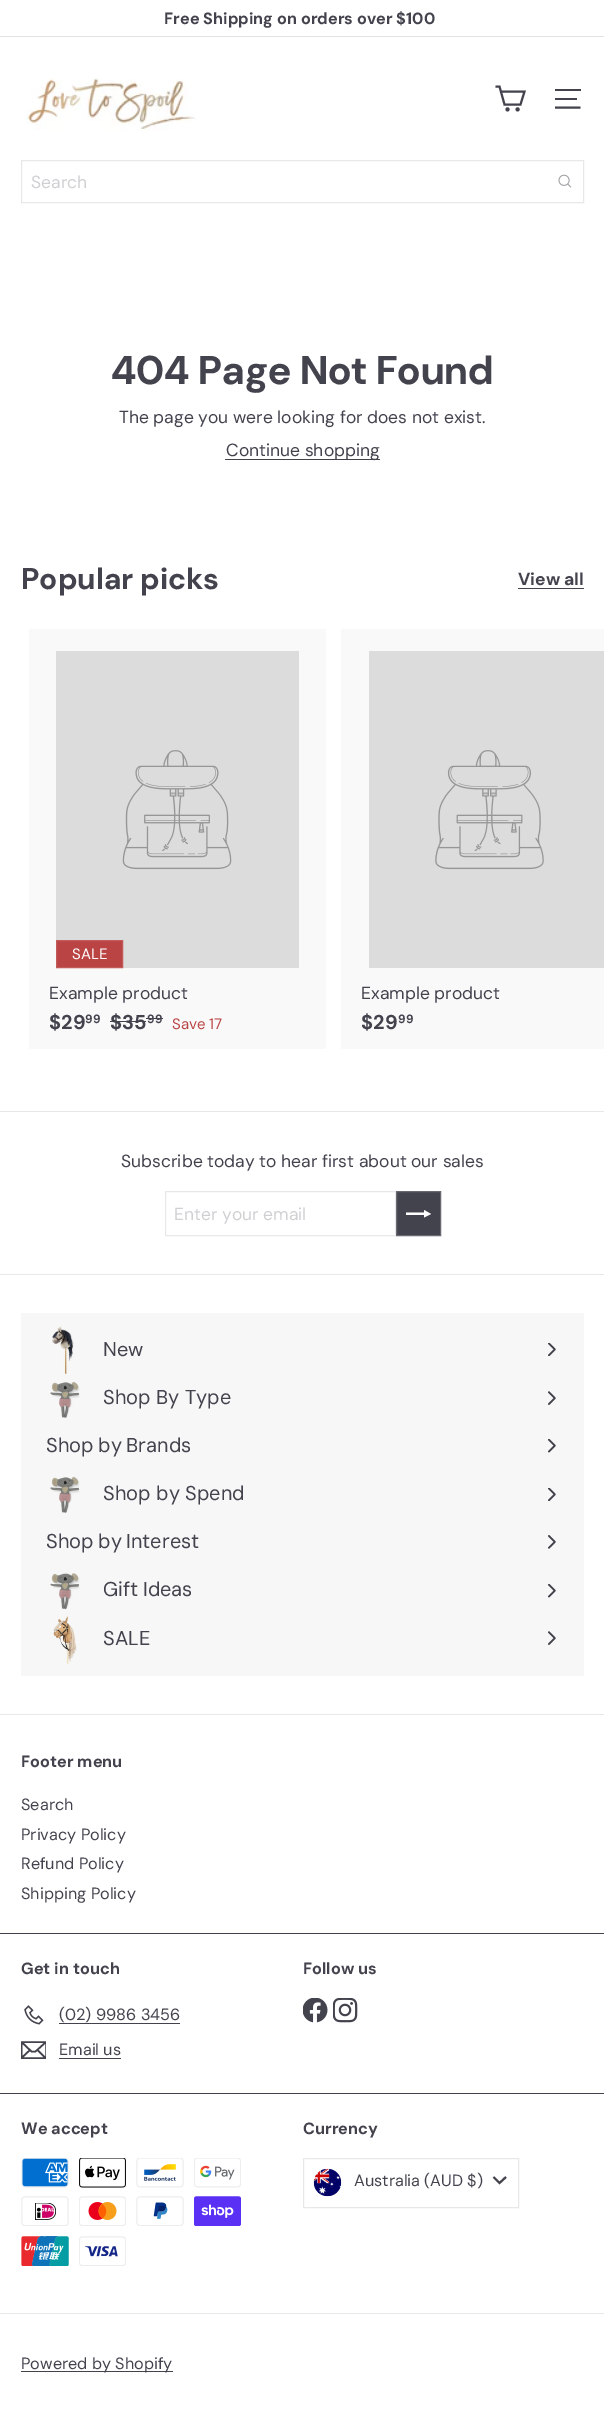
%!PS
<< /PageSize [604 2418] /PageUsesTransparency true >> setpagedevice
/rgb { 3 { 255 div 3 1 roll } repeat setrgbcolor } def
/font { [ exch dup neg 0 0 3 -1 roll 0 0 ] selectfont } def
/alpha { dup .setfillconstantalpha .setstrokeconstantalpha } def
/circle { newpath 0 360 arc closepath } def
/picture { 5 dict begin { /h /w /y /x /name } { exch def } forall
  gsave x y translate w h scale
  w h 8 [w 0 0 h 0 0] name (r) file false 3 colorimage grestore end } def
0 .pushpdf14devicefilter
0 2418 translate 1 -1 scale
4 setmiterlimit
255 255 255 rgb
0 0 604 2418 rectfill
247 247 247 rgb
21 1313 563 363 rectfill
227 227 228 rgb
0 36 604 1 rectfill
(img/1.rgb) 26 78 170 53 picture
66 67 77 rgb
2 setlinewidth
501 91.5 moveto 524.5 91.5 lineto 520.5 104.5 lineto 504.5 104.5 lineto 499.5 86.5 lineto 495.5 86.5 lineto stroke
507.5 109.4 1 circle stroke
517.6 109.4 1 circle stroke
555 89 26 2 rectfill
555 98 22 2 rectfill
555 107.5 moveto 580.5 107.5 lineto stroke
232 232 234 rgb
1 setlinewidth
21.5 160.5 562 42 rectstroke
(img/2.rgb) 558 174 14 14 picture
[
  [225 459 155 1 66 67 77]
  [518 588 66 1 66 67 77]
  [56 651 243 317 225 225 225]
] { aload pop rgb rectfill } forall
(img/3.rgb) 122 750 110 120 picture
[
  [110 1021 36 1 66 67 77]
  [146 1018 17 1 66 67 77]
] { aload pop rgb rectfill } forall
0.03 alpha
[
  [29 629 297 420 66 67 77]
] { aload pop rgb rectfill } forall
1 alpha
186 68 68 rgb
56.5 940.5 moveto 122.5 940.5 lineto 122.5 967.5 lineto 56.5 967.5 lineto closepath gsave fill grestore
194 90 90 rgb
stroke
225 225 225 rgb
369 651 235 317 rectfill
(img/4.rgb) 435 750 109 120 picture
0.03 alpha
66 67 77 rgb
341 629 263 420 rectfill
1 alpha
232 232 234 rgb
0 1111 604 1 rectfill
165.5 1191.5 230 44 rectstroke
66 67 77 rgb
396.5 1191.5 moveto 440.5 1191.5 lineto 440.5 1235.5 lineto 396.5 1235.5 lineto closepath gsave fill grestore
104 105 113 rgb
stroke
255 255 255 rgb
406 1215 moveto 406 1212.5 lineto 424 1212.5 lineto 424 1210 lineto 431 1214 lineto 424 1217.5 lineto 424 1215 lineto closepath fill
232 232 234 rgb
0 1274 604 1 rectfill
(img/5.rgb) 52 1326 22 48 picture
(img/6.rgb) 548 1343 8 13 picture
(img/7.rgb) 50 1373 30 45 picture
(img/8.rgb) 548 1391 8 14 picture
(img/9.rgb) 548 1439 8 14 picture
(img/10.rgb) 50 1476 30 37 picture
(img/6.rgb) 548 1488 8 13 picture
(img/11.rgb) 548 1535 8 14 picture
(img/12.rgb) 50 1573 30 37 picture
(img/9.rgb) 548 1584 8 14 picture
(img/13.rgb) 53 1616 24 48 picture
(img/8.rgb) 548 1631 8 14 picture
0 1714 604 1 rectfill
66 67 77 rgb
0 1933 604 1 rectfill
(img/14.rgb) 24 2005 20 20 picture
59 2023 121 1 rectfill
gsave
21 2038 25 25 rectclip
1.6 setlinewidth
46 2058 moveto 21.5 2058 lineto 21.5 2042 lineto 46 2042 lineto closepath 21.5 2042 moveto 31.5 2051.5 lineto 35.5 2051.5 lineto 46 2042 lineto 30 2050 moveto 22 2057.5 lineto 45.5 2058 moveto 37.5 2050 lineto stroke
grestore
59 2058 62 1 rectfill
(img/15.rgb) 303 1998 25 25 picture
(img/16.rgb) 333 1998 25 25 picture
0 2093 604 1 rectfill
(img/17.rgb) 21 2158 48 30 picture
(img/18.rgb) 79 2158 47 30 picture
(img/19.rgb) 136 2158 48 30 picture
(img/20.rgb) 194 2158 47 30 picture
(img/21.rgb) 21 2196 48 30 picture
(img/22.rgb) 79 2196 47 30 picture
(img/23.rgb) 136 2196 48 30 picture
(img/24.rgb) 194 2196 47 30 picture
(img/25.rgb) 21 2236 48 30 picture
(img/26.rgb) 79 2236 47 30 picture
232 232 234 rgb
303.5 2158.5 215 49 rectstroke
(img/27.rgb) 313 2168 29 29 picture
66 67 77 rgb
2 setlinewidth
493.5 2177 moveto 499.5 2183 lineto 506 2177 lineto stroke
232 232 234 rgb
0 2313 604 1 rectfill
66 67 77 rgb
21 2371 152 1 rectfill
/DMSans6-Bold 16.25 font
164 24 moveto (Free Shipping on orders over $100) show
/DMSans-Regular 17.5 font
208 208 211 rgb
31 188 moveto (Search) show
/DMSans-Bold 40 font
66 67 77 rgb
111 384 moveto (404 Page Not Found) show
/DMSans-Regular 17.5 font
119 423 moveto (The page you were looking for does not exist.) show
226 456 moveto (Continue shopping) show
/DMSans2-Bold 30 font
21 589 moveto (Popular picks) show
/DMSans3-Bold 17.5 font
518 585 moveto (View all) show
/DMSans2-Regular 15 font
255 255 255 rgb
72 959 moveto (SALE) show
/DMSans-Regular 17.5 font
66 67 77 rgb
49 999 moveto (Example product) show
/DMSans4-Bold 20 font
49 1029 moveto ($29) show
/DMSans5-Bold 12 font
85 1023 moveto (99) show
/DMSans4-Bold 20 font
110 1029 moveto ($35) show
/DMSans5-Bold 12 font
147 1023 moveto (99) show
/DMSans2-Regular 15 font
186 68 68 rgb
172 1029 moveto (Save 17) show
/DMSans-Regular 17.5 font
66 67 77 rgb
361 999 moveto (Example product) show
/DMSans4-Bold 20 font
361 1029 moveto ($29) show
/DMSans5-Bold 12 font
398 1023 moveto (99) show
/DMSans-Regular 17.5 font
121 1167 moveto (Subscribe today to hear first about our sales) show
208 208 211 rgb
174 1220 moveto (Enter your email) show
/DMSans3-Regular 20 font
66 67 77 rgb
103 1356 moveto (New) show
/DMSans4-Regular 20 font
103 1404 moveto (Shop By Type) show
46 1452 moveto -1 0 32 (Shop by Brands) widthshow
103 1500 moveto (Shop by Spend) show
46 1548 moveto -1 0 32 (Shop by Interest) widthshow
103 1596 moveto -1 0 32 (Gift Ideas) widthshow
103 1645 moveto (SALE) show
/DMSans6-Bold 16.25 font
21 1767 moveto (Footer menu) show
/DMSans5-Regular 16.25 font
[
  [(Search) 21 1810]
  [(Privacy Policy) 21 1840]
  [(Refund Policy) 21 1869]
  [(Shipping Policy) 21 1899]
] { aload pop moveto show } forall
/DMSans6-Bold 16.25 font
21 1974 moveto (Get in touch) show
/DMSans5-Regular 16.25 font
59 2020 moveto (\(02\) 9986 3456) show
59 2055 moveto (Email us) show
/DMSans6-Bold 16.25 font
[
  [(Follow us) 303 1974]
  [(We accept) 21 2134]
  [(Currency) 303 2134]
] { aload pop moveto show } forall
/DMSans5-Regular 16.25 font
354 2186 moveto (Australia \(AUD $\)) show
21 2369 moveto (Powered by Shopify) show
.poppdf14devicefilter showpage
